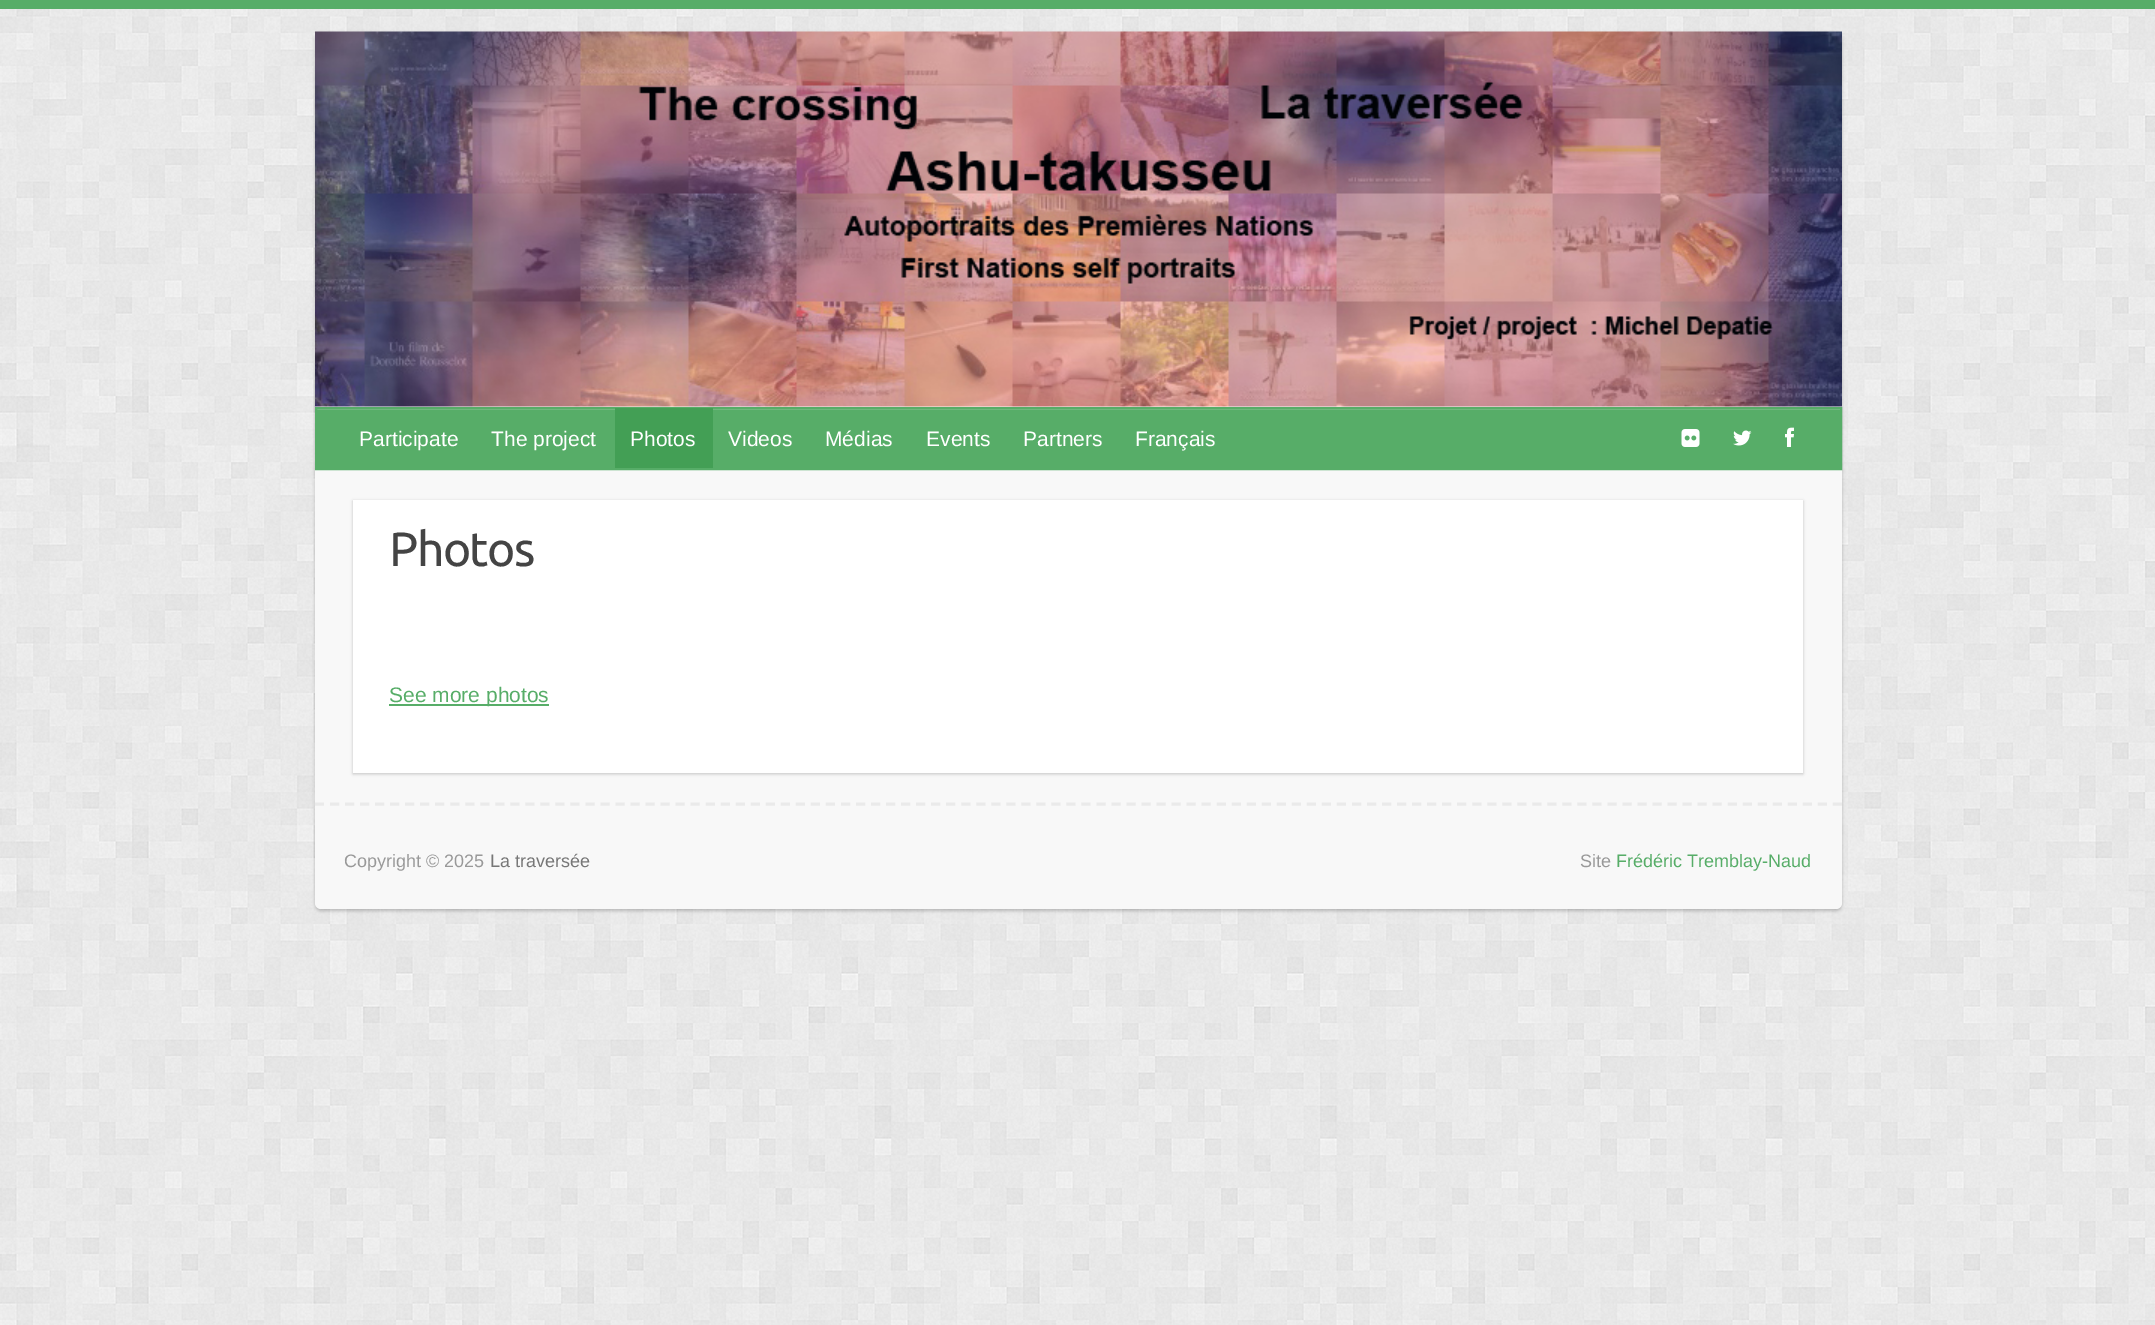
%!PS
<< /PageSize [2155 1325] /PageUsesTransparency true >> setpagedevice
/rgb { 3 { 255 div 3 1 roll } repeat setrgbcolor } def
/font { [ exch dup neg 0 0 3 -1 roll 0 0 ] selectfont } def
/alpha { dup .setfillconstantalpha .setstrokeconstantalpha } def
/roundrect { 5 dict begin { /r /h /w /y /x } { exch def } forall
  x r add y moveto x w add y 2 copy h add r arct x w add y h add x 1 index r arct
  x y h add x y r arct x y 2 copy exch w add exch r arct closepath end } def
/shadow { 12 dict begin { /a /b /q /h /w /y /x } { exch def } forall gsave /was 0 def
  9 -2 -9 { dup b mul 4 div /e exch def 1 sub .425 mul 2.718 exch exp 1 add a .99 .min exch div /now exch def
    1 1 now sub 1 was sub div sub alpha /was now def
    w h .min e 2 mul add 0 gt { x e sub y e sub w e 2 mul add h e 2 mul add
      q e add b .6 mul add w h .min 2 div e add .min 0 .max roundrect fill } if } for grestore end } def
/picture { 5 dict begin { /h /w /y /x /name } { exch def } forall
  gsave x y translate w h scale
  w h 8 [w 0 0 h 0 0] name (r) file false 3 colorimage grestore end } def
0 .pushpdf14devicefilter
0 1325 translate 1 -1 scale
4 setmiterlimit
255 255 255 rgb
0 0 2155 1325 rectfill
(img/1.rgb) 0 9 2155 1316 picture
87 173 104 rgb
0 0 2155 9 rectfill
0 0 0 rgb
315 33 1527 878 6 1.5 0.2 shadow
248 248 248 rgb
315 32 1527 877 6 roundrect fill
(img/2.rgb) 315 31 1527 376 picture
87 173 104 rgb
317 410 1523 58 rectfill
121 189 134 rgb
317 409 1524 1 rectfill
87 173 104 rgb
2 setlinewidth
316 408 1525 61 rectstroke
67 159 85 rgb
615 408 98 60 rectfill
(img/3.rgb) 1681 429 19 18 picture
(img/4.rgb) 1733 430 19 16 picture
(img/5.rgb) 1785 427 9 20 picture
0 0 0 rgb
353 501 1450 273 0 1.5 0.2 shadow
255 255 255 rgb
353 500 1450 273 rectfill
87 173 104 rgb
389 704 160 2 rectfill
234 234 234 rgb
3 setlinewidth
[9 6.03] 0 setdash
315 804 moveto 1842 804 lineto stroke
/LiberationSans-Regular 21 font
255 255 255 rgb
[
  [(Participate) 359 446]
  [(The project) 491 446]
  [(Photos) 630 446]
  [(Videos) 728 446]
  [(Médias) 825 446]
  [(Events) 926 446]
  [(Partners) 1023 446]
  [(Français) 1135 446]
] { aload pop moveto show } forall
/Ubuntu-Regular 48 font
68 68 68 rgb
389 566 moveto -1.5 0 (Photos) ashow
/LiberationSans-Regular 21 font
87 173 104 rgb
389 702 moveto (See more photos) show
/LiberationSans-Regular 18 font
153 153 153 rgb
344 867 moveto (Copyright © 2025) show
119 119 119 rgb
490 867 moveto (La traversée) show
153 153 153 rgb
1580 867 moveto (Site) show
87 173 104 rgb
1616 867 moveto (Frédéric Tremblay-Naud) show
.poppdf14devicefilter showpage
